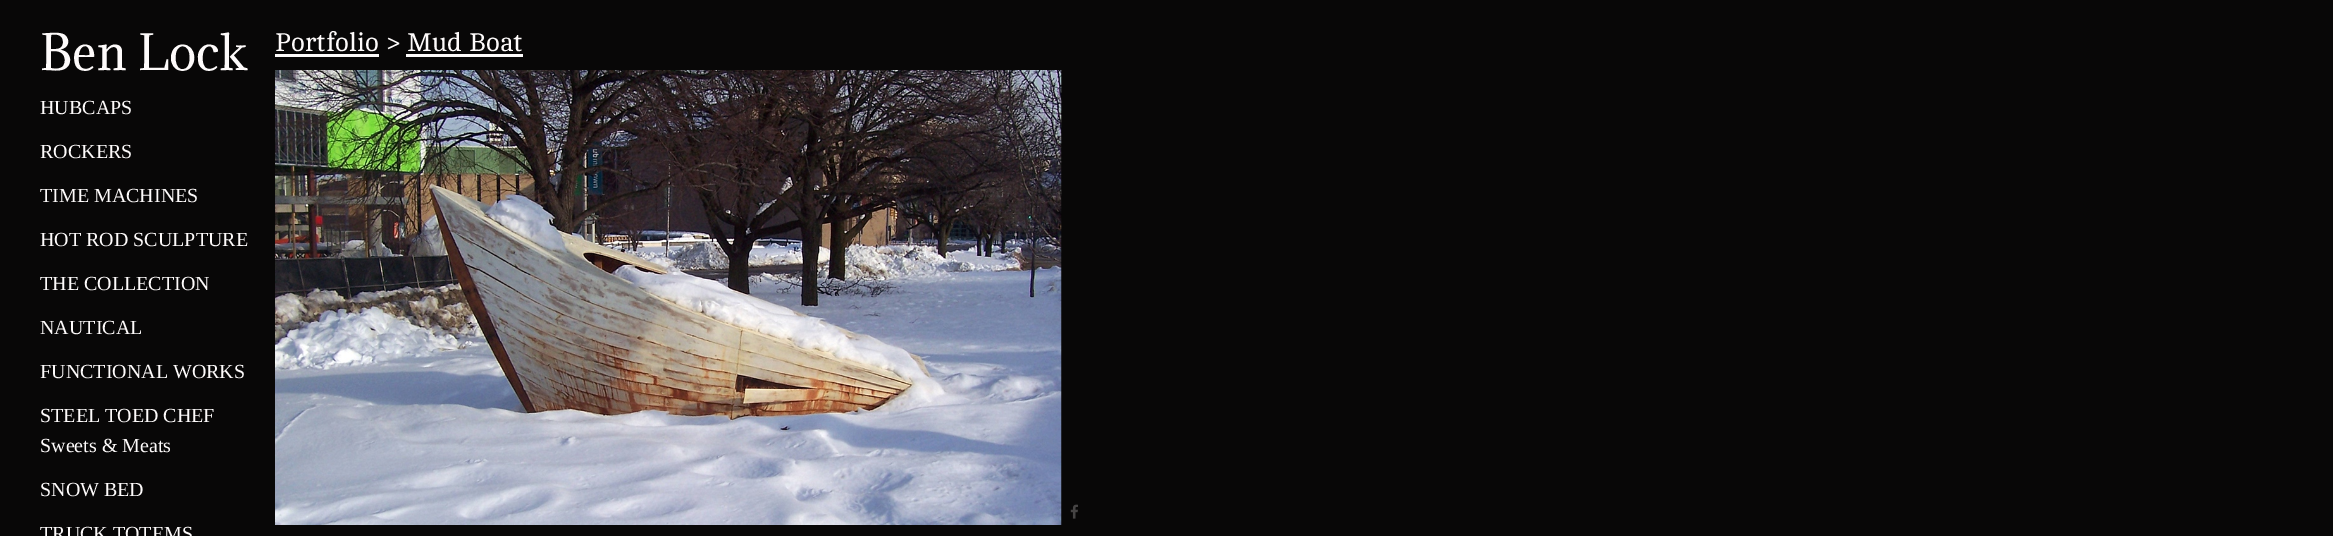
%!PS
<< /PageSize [2333 536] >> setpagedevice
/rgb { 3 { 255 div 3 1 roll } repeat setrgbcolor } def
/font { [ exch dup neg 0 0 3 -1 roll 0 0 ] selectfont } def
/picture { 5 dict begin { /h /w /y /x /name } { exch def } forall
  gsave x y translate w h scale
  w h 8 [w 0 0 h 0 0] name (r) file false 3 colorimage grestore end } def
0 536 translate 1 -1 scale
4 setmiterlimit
8 7 7 rgb
0 0 2333 536 rectfill
253 251 251 rgb
275 54 104 3 rectfill
406 54 117 3 rectfill
(img/1.rgb) 275 70 787 455 picture
(img/2.rgb) 1070 504 8 15 picture
/Adamina-Regular 46.25 font
254 251 251 rgb
40 70 moveto (Ben Lock) show
/LiberationSerif-Regular 20 font
[
  [(HUBCAPS) 40 114]
  [(ROCKERS) 40 158]
  [(TIME MACHINES) 40 202]
  [(HOT ROD SCULPTURE) 40 246]
  [(THE COLLECTION) 40 290]
  [(NAUTICAL) 40 334]
  [(FUNCTIONAL WORKS) 40 378]
  [(STEEL TOED CHEF) 40 422]
  [(Sweets & Meats) 40 452]
  [(SNOW BED) 40 496]
  [(TRUCK TOTEMS) 40 540]
] { aload pop moveto show } forall
/Cambo-Regular 26.25 font
275 51 moveto (Portfolio > Mud Boat) show
showpage
